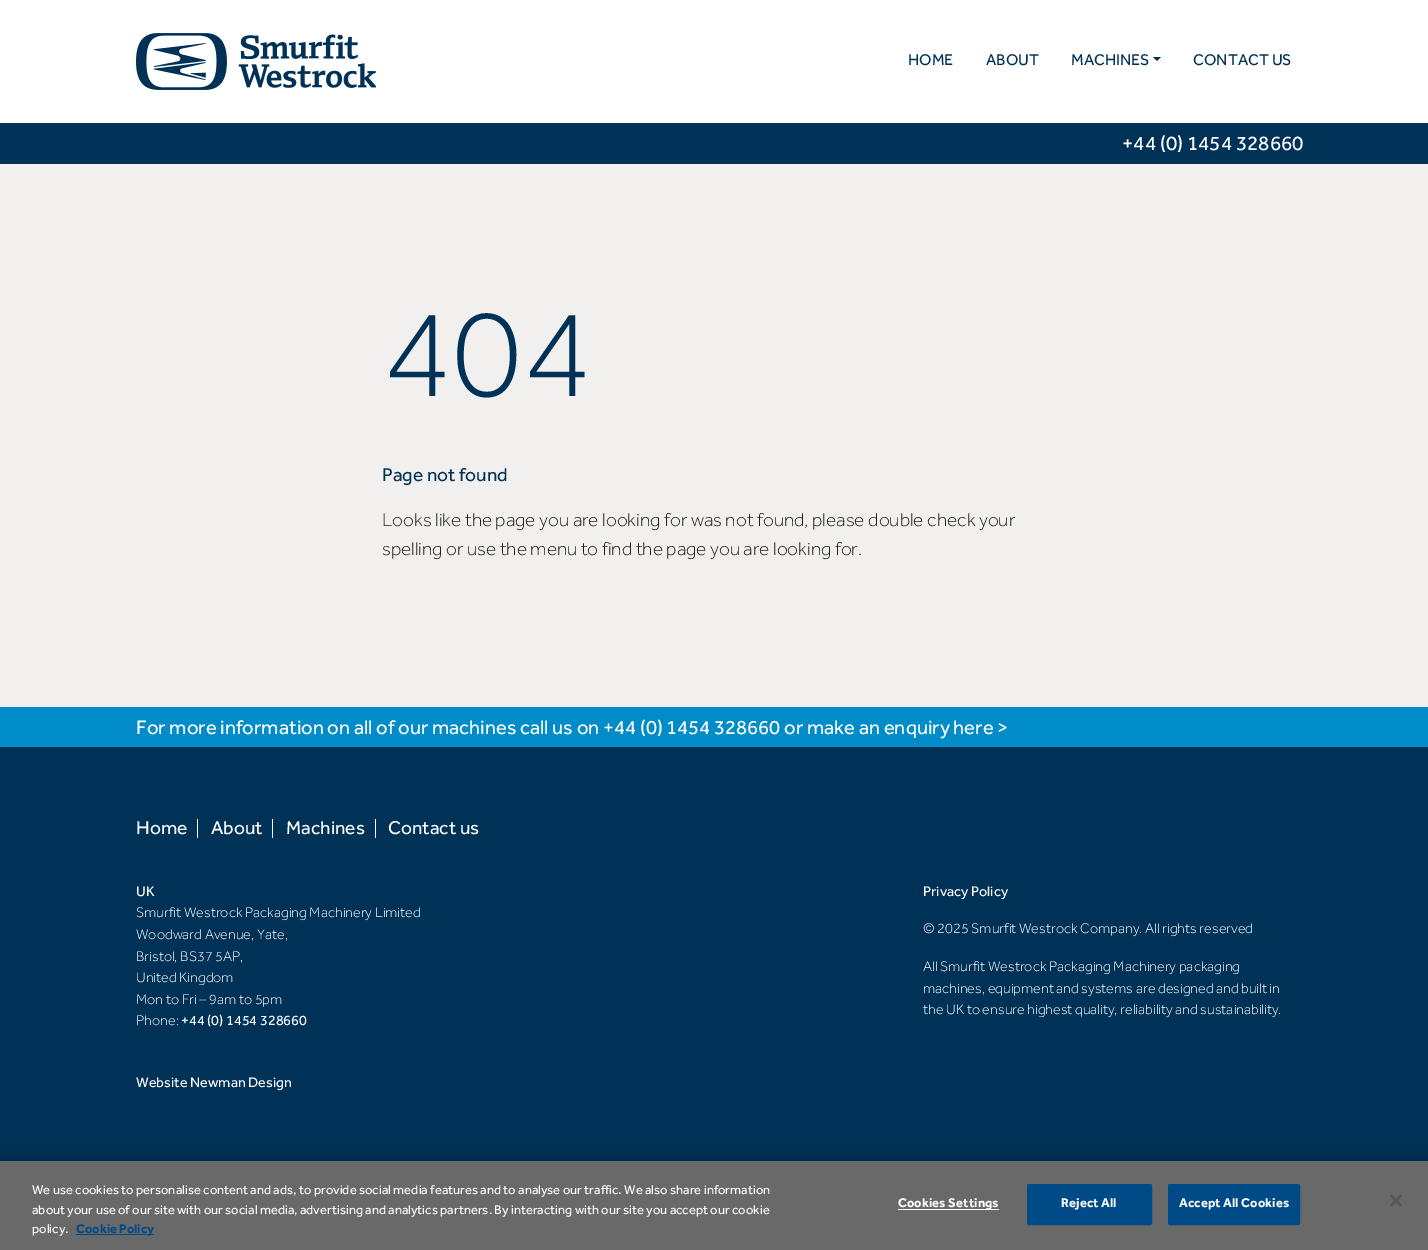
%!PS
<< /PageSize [1428 1250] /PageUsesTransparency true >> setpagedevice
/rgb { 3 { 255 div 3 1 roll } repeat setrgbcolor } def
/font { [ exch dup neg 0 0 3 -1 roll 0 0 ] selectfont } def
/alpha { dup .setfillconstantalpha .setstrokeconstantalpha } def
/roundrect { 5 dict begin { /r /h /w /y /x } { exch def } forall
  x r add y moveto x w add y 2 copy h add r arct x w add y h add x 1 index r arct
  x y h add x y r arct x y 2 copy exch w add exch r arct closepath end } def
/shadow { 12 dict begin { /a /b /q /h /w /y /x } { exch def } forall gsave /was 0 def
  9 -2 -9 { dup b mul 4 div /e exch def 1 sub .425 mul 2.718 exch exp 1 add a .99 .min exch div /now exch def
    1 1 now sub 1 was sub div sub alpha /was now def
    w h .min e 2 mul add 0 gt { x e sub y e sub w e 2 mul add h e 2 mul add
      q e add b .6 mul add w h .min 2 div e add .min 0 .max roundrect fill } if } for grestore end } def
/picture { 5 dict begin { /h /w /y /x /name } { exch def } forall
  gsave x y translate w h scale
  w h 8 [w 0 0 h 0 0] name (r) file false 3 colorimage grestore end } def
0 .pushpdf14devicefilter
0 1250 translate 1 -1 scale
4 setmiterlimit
255 255 255 rgb
0 0 1428 1250 rectfill
(img/1.rgb) 136 33 240 57 picture
0 49 87 rgb
1153 57 moveto 1161 57 lineto 1157 61 lineto closepath fill
[
  [0 123 1428 41 0 49 87]
  [0 164 1428 543 242 240 238]
  [0 707 1428 40 0 139 201]
  [0 747 1428 414 0 49 87]
  [197 819 1 19 255 255 255]
  [272 819 1 19 255 255 255]
  [375 819 1 19 255 255 255]
] { aload pop rgb rectfill } forall
0 0 0 rgb
0 1161 1428 89 0 9 0.2 shadow
[
  [0 1161 1428 89 105 105 105]
  [76 1234 78 1 0 75 135]
  [898 1209 101 1 255 255 255]
] { aload pop rgb rectfill } forall
0 75 135 rgb
1027.5 1184.5 124 40 1.5 roundrect gsave fill grestore
stroke
1168.5 1184.5 131 40 1.5 roundrect gsave fill grestore
stroke
(img/2.rgb) 1390 1194 12 12 picture
/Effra-Regular 16 font
0 49 87 rgb
[
  [(HOME) 908 65]
  [(ABOUT) 986 65]
  [(MACHINES) 1071 65]
  [(CONTACT US) 1193 65]
] { aload pop moveto show } forall
/Effra-Regular 20.75 font
255 255 255 rgb
1122 150 moveto (+44 \(0\) 1454 328660) show
/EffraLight-Light 128 font
0 49 87 rgb
382 396 moveto (404) show
/Effra-Regular 19.2 font
382 481 moveto (Page not found) show
/EffraLight-Light 19.2 font
35 31 32 rgb
382 526 moveto (Looks like the page you are looking for was not found, please double check your) show
382 555 moveto (spelling or use the menu to find the page you are looking for.) show
/Effra-Regular 20.3 font
255 255 255 rgb
136 734 moveto (For more information on all of our machines call us on +44 \(0\) 1454 328660 or make an enquiry here >) show
/Effra-Regular 19.2 font
[
  [(Home) 136 834]
  [(About) 211 834]
  [(Machines) 286 834]
  [(Contact us) 388 834]
] { aload pop moveto show } forall
/Effra-Regular 14.4 font
136 896 moveto (UK) show
/EffraLight-Light 14.4 font
[
  [(Smurfit Westrock Packaging Machinery Limited) 136 917]
  [(Woodward Avenue, Yate,) 136 939]
  [(Bristol, BS37 5AP,) 136 961]
  [(United Kingdom) 136 982]
  [(Mon to Fri – 9am to 5pm) 136 1004]
  [(Phone:) 136 1025]
] { aload pop moveto show } forall
/Effra-Regular 14.4 font
181 1025 moveto (+44 \(0\) 1454 328660) show
923 896 moveto (Privacy Policy) show
/EffraLight-Light 14.4 font
[
  [(© 2025 Smurfit Westrock Company. All rights reserved) 923 933]
  [(All Smurfit Westrock Packaging Machinery packaging) 923 971]
  [(machines, equipment and systems are designed and built in) 923 993]
  [(the UK to ensure highest quality, reliability and sustainability.) 923 1014]
] { aload pop moveto show } forall
/Effra-Regular 14.4 font
136 1087 moveto (Website Newman Design) show
/Effra-Regular 13 font
[
  [(We use cookies to personalise content and ads, to provide social media features and to analyse our traffic. We also share information) 32 1194]
  [(about your use of our site with our social media, advertising and analytics partners. By interacting with our site you accept our cookie) 32 1214]
  [(policy.) 32 1233]
] { aload pop moveto show } forall
/Effra-Bold 13 font
0 75 135 rgb
76 1233 moveto (Cookie Policy) show
255 255 255 rgb
898 1207 moveto 0.1 0 (Cookies Settings) ashow
1061 1207 moveto 0.1 0 (Reject All) ashow
1179 1207 moveto 0.1 0 (Accept All Cookies) ashow
.poppdf14devicefilter showpage
